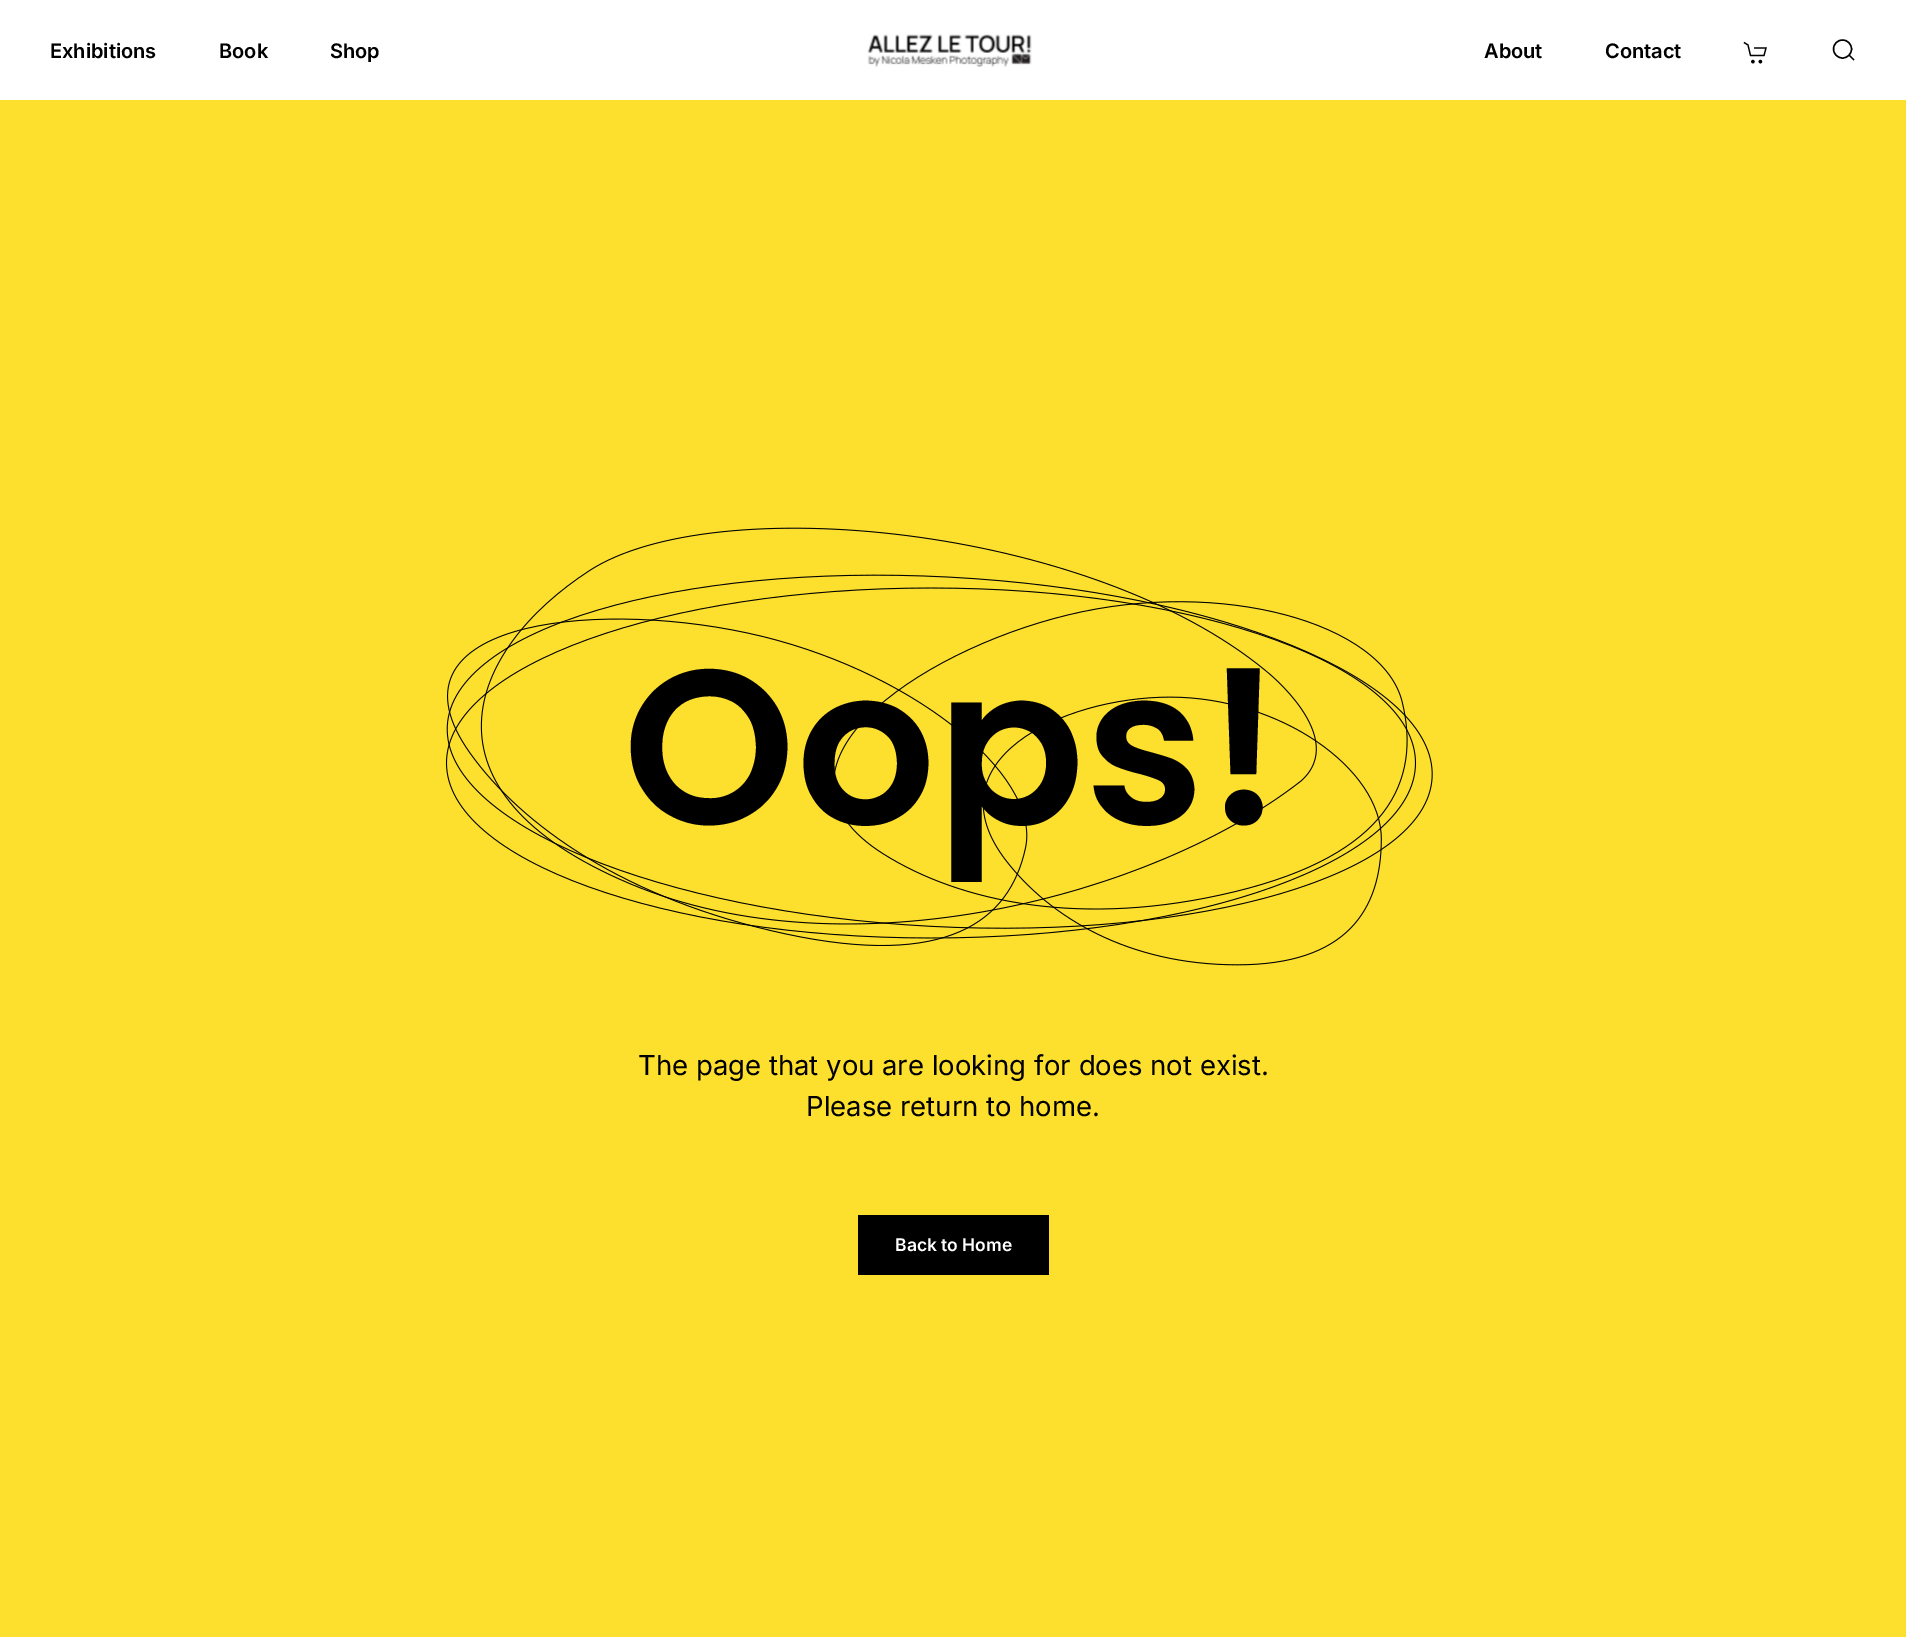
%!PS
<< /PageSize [1906 1637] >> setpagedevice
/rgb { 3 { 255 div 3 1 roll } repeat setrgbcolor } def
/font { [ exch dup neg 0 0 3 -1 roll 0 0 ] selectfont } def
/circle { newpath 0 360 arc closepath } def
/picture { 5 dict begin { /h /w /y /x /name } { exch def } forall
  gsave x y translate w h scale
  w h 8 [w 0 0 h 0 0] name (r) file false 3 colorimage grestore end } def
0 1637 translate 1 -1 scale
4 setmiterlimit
255 255 255 rgb
0 0 1906 1637 rectfill
(img/1.rgb) 867 34 165 33 picture
0 0 0 rgb
1.2 setlinewidth
1744 42.5 moveto 1748 45 lineto 1750.5 55.5 lineto 1764 55.5 lineto 1766 48 lineto 1754 48 lineto stroke
1752.9 61.6 1.7 circle fill
1760.4 61.6 1.7 circle fill
1.4 setlinewidth
1842.5 49 9 circle stroke
1849 55 moveto 1854 60 lineto closepath stroke
253 223 46 rgb
0 100 1906 1537 rectfill
(img/2.rgb) 445 527 988 439 picture
0 0 0 rgb
858 1215 191 60 rectfill
/Inter-SemiBold 20 font
[
  [(Exhibitions) 50 58]
  [(Book) 219 58]
  [(Shop) 330 58]
  [(About) 1484 58]
  [(Contact) 1605 58]
] { aload pop moveto show } forall
/Poppins-SemiBold 220 font
623 824 moveto (Oops!) show
/Inter-Regular 27.5 font
638 1075 moveto (The page that you are looking for does not exist.) show
806 1116 moveto (Please return to home.) show
/Inter-SemiBold 17.5 font
255 255 255 rgb
895 1251 moveto (Back to Home) show
showpage
